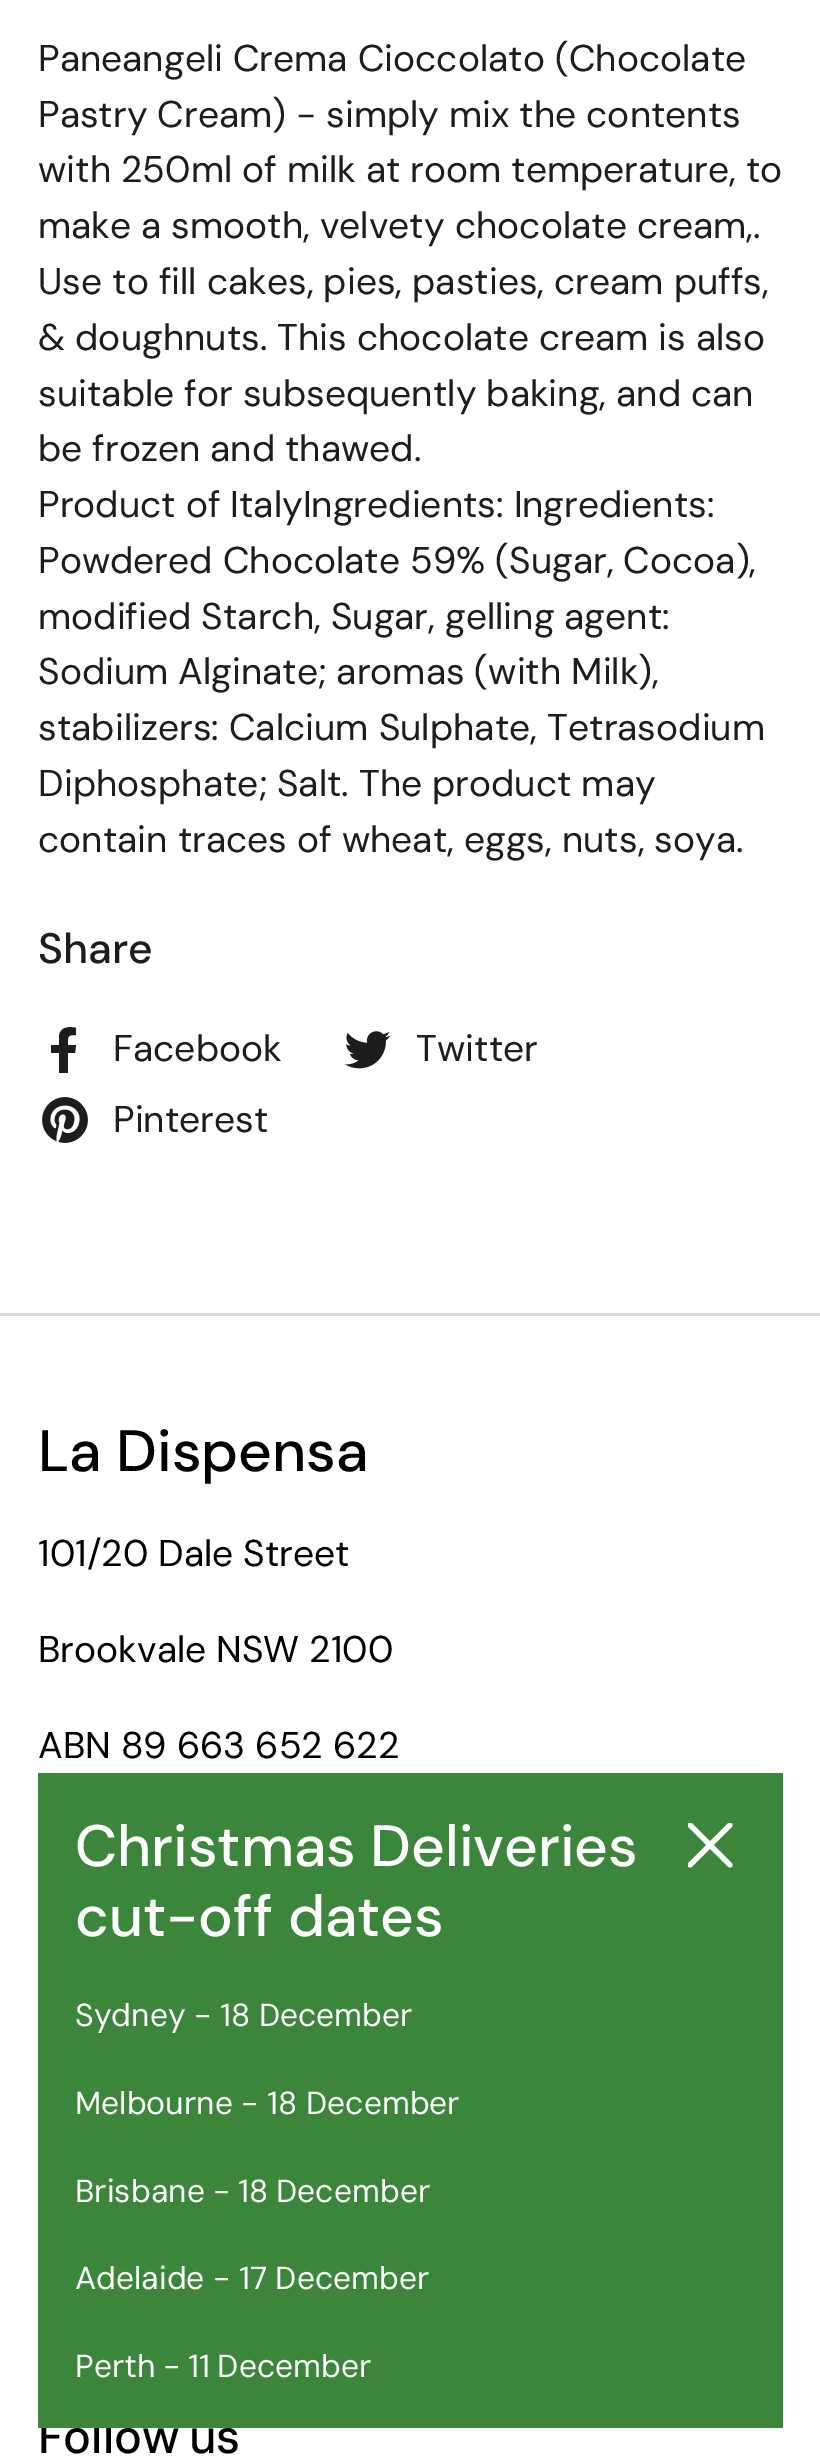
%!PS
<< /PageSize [820 2464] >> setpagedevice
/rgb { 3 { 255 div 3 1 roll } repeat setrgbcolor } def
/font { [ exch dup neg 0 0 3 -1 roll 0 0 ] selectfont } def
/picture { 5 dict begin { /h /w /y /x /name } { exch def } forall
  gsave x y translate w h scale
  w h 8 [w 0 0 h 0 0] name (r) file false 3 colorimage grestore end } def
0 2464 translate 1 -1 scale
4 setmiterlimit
255 255 255 rgb
0 0 820 2464 rectfill
29 29 29 rgb
75 1053 moveto 76 1045 lineto 68 1045 lineto 68 1036 67 1035 76 1035 curveto 76 1028 lineto 69 1026 60 1027 59 1036 curveto 59 1045 lineto 51 1045 lineto 51 1053 lineto 59 1053 lineto 59 1073 lineto 68 1073 lineto 68 1053 lineto closepath fill
(img/1.rgb) 344 1031 47 38 picture
(img/2.rgb) 42 1097 46 46 picture
217 217 217 rgb
0 1313 820 3 rectfill
/DMSans-Regular 37.2 font
29 29 29 rgb
[
  [(Paneangeli Crema Cioccolato \(Chocolate) 38 71]
  [(Pastry Cream\) - simply mix the contents) 38 127]
  [(with 250ml of milk at room temperature, to) 38 182]
  [(make a smooth, velvety chocolate cream,.) 38 238]
  [(Use to fill cakes, pies, pasties, cream puffs,) 38 294]
  [(& doughnuts. This chocolate cream is also) 38 350]
  [(suitable for subsequently baking, and can) 38 406]
  [(be frozen and thawed.) 38 461]
  [(Product of ItalyIngredients: Ingredients:) 38 517]
  [(Powdered Chocolate 59% \(Sugar, Cocoa\),) 38 573]
  [(modified Starch, Sugar, gelling agent:) 38 629]
  [(Sodium Alginate; aromas \(with Milk\),) 38 684]
  [(stabilizers: Calcium Sulphate, Tetrasodium) 38 740]
  [(Diphosphate; Salt. The product may) 38 796]
  [(contain traces of wheat, eggs, nuts, soya.) 38 852]
] { aload pop moveto show } forall
/DMSans-Medium 42.5 font
38 963 moveto (Share) show
/DMSans-Regular 37.2 font
[
  [(Facebook) 113 1061]
  [(Twitter) 416 1061]
  [(Pinterest) 113 1132]
] { aload pop moveto show } forall
/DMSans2-Medium 58.25 font
0 0 0 rgb
38 1471 moveto (La Dispensa) show
/DMSans-Regular 37.2 font
[
  [(101/20 Dale Street) 38 1566]
  [(Brookvale NSW 2100) 38 1662]
  [(ABN 89 663 652 622) 38 1758]
] { aload pop moveto show } forall
/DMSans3-Medium 46.5 font
38 2453 moveto -3 0 32 (Follow us) widthshow
60 134 59 rgb
38 1773 745 655 rectfill
/DMSans2-Medium 58.25 font
255 255 255 rgb
75 1866 moveto (Christmas Deliveries) show
75 1936 moveto (cut-off dates) show
/DMSans2-Regular 31.9 font
75 2026 moveto (Sydney - 18 December) show
75 2114 moveto (Melbourne - 18 December) show
75 2202 moveto -0.5 0 32 (Brisbane - 18 December) widthshow
75 2289 moveto (Adelaide - 17 December) show
75 2377 moveto -1 0 32 (Perth - 11 December) widthshow
gsave
688 1823 45 45 rectclip
5 setlinewidth
1 setlinecap
1 setlinejoin
730 1825 moveto 690 1865 lineto 690 1825 moveto 730 1865 lineto stroke
grestore
showpage
